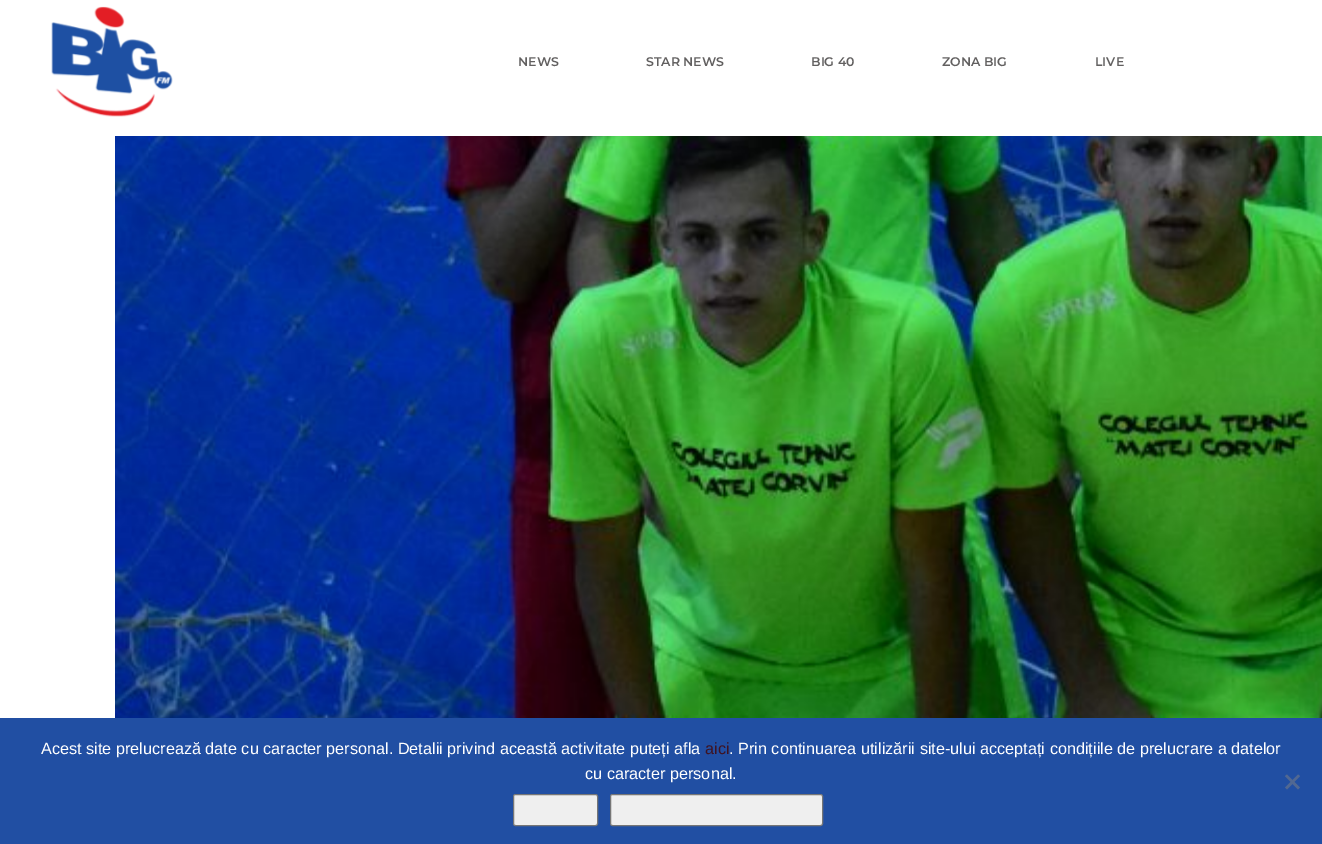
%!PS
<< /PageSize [1322 844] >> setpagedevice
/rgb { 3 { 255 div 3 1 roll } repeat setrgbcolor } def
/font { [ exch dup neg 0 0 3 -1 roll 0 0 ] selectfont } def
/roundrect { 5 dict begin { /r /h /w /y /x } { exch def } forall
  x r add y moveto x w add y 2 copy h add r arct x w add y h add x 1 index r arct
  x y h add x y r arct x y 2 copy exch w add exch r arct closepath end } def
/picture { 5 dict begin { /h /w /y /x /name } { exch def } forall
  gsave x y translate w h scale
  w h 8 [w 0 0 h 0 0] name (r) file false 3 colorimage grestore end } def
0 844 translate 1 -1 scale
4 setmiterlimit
255 255 255 rgb
0 0 1322 844 rectfill
(img/1.rgb) 51 6 122 111 picture
(img/2.rgb) 115 136 1207 582 picture
33 79 163 rgb
0 718 1322 126 rectfill
81 104 146 rgb
1298 774.5 moveto 1300 776 lineto 1287 789.5 lineto 1285 787.5 lineto closepath fill
1285 776 moveto 1287 774.5 lineto 1300 787.5 lineto 1298 789.5 lineto closepath fill
239 239 239 rgb
513.5 794.5 84 31 2 roundrect gsave fill grestore
118 118 118 rgb
stroke
239 239 239 rgb
610.5 794.5 212 31 2 roundrect gsave fill grestore
118 118 118 rgb
stroke
/Montserrat-SemiBold 12.5 font
98 96 96 rgb
[
  [(NEWS) 518 66]
  [(STAR NEWS) 646 66]
  [(BIG 40) 811 66]
  [(ZONA BIG) 942 66]
  [(LIVE) 1095 66]
] { aload pop moveto show } forall
/LiberationSans-Regular 16.25 font
255 255 255 rgb
41 754 moveto (Acest site prelucrează date cu caracter personal. Detalii privind această activitate puteți afla) show
62 19 34 rgb
705 754 moveto (aici) show
255 255 255 rgb
729 754 moveto (. Prin continuarea utilizării site-ului acceptați condițiile de prelucrare a datelor) show
585 779 moveto (cu caracter personal.) show
showpage
